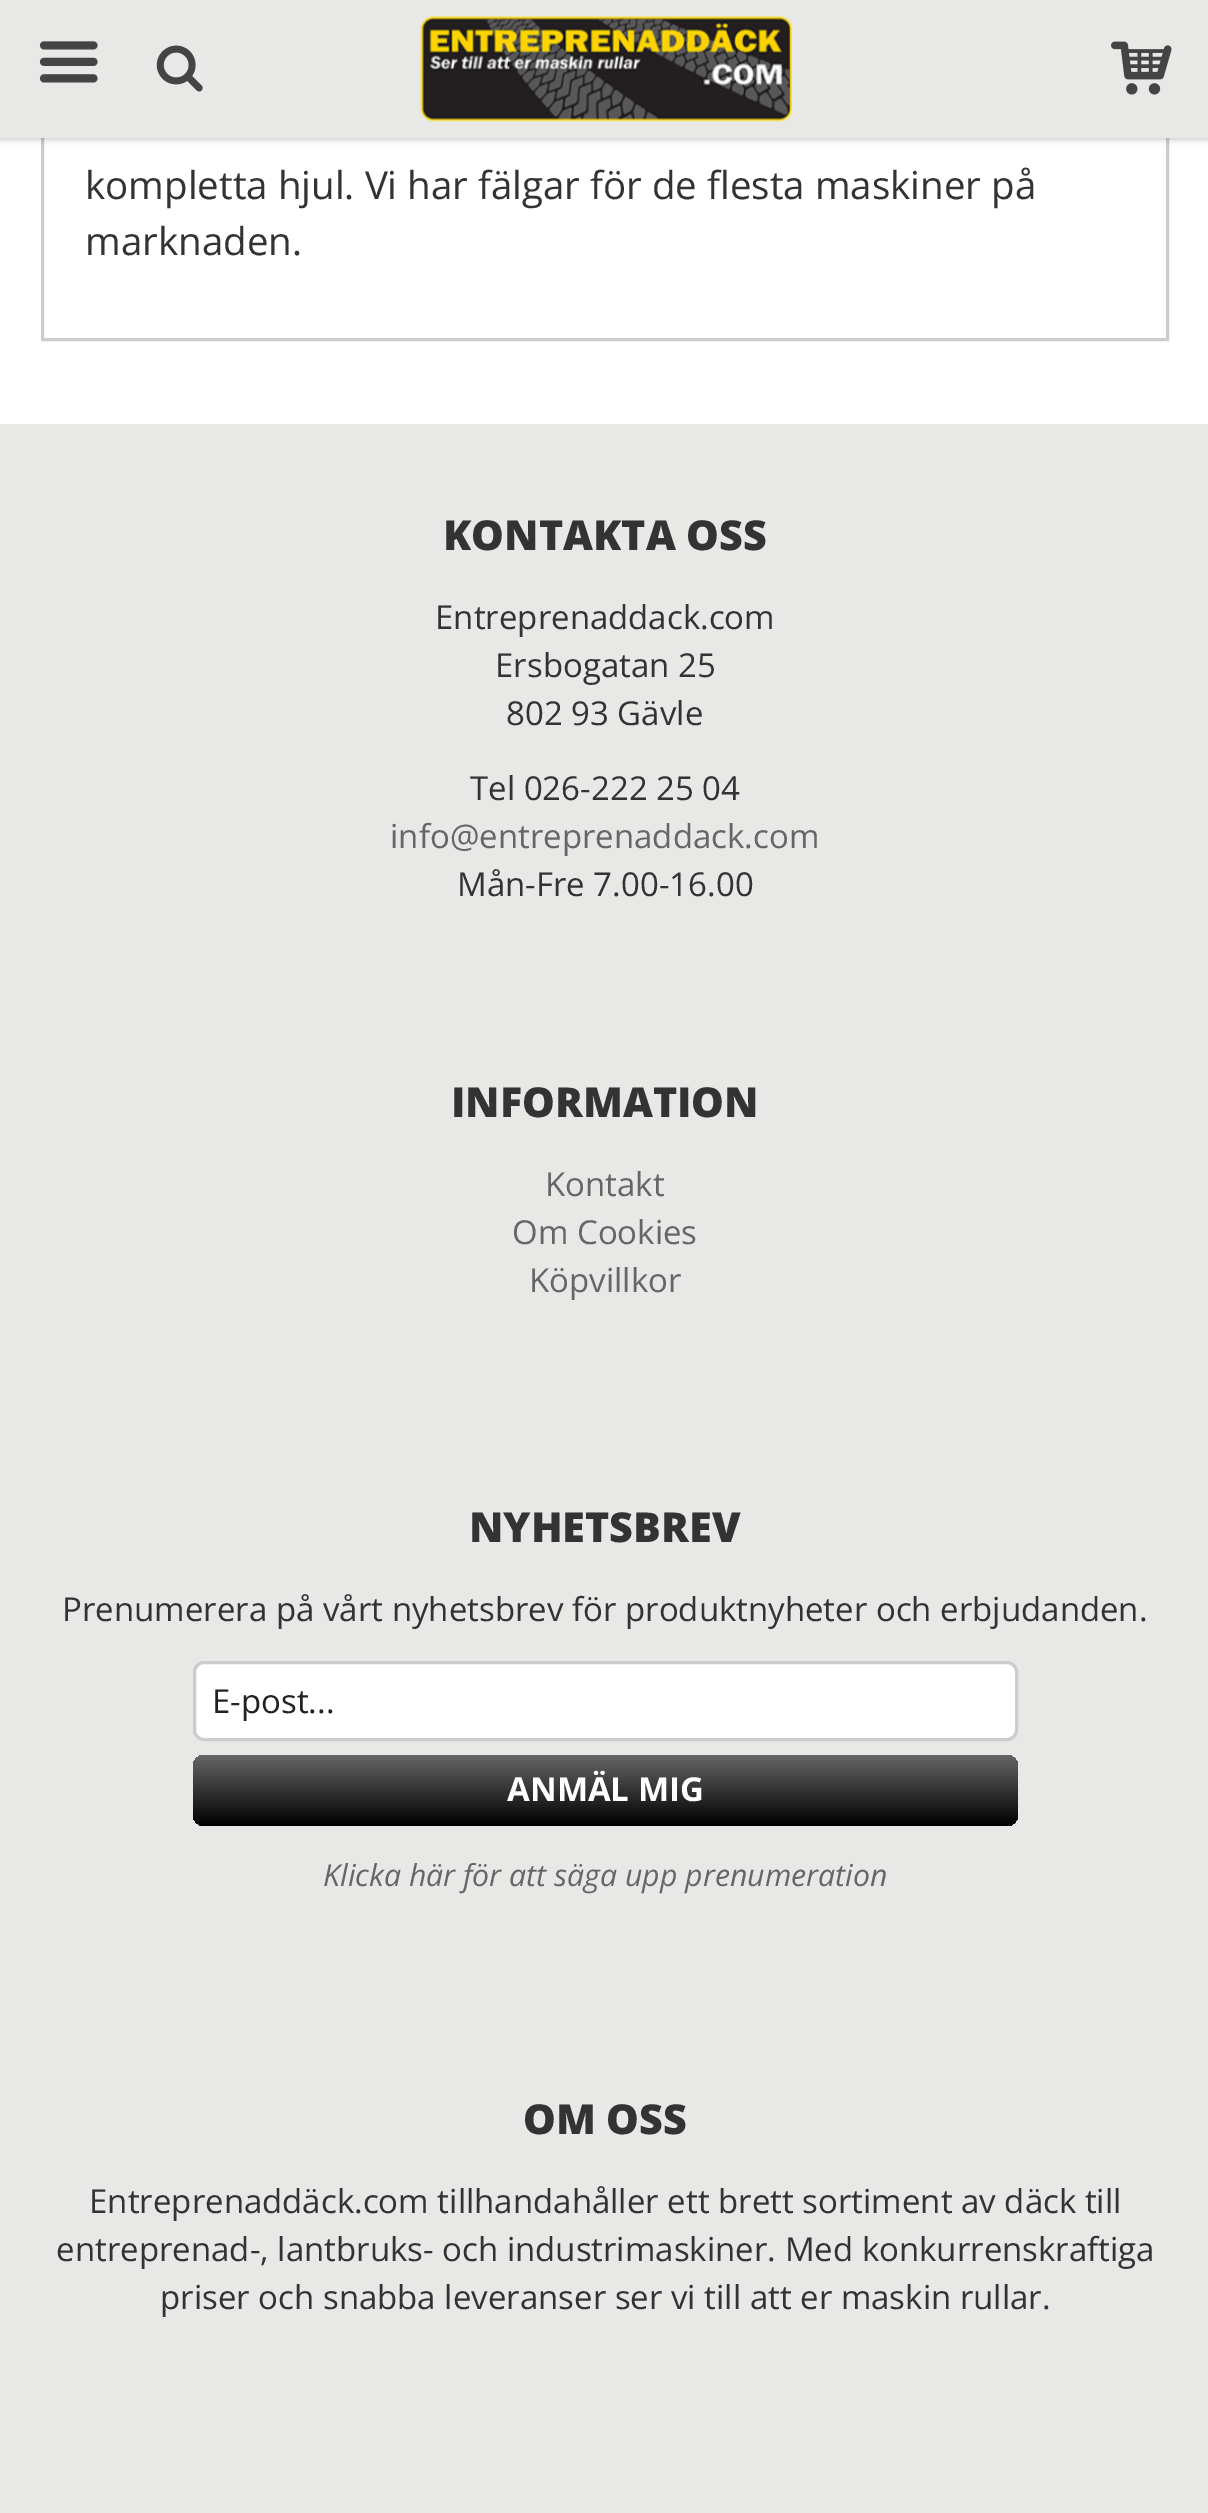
%!PS
<< /PageSize [1208 2513] /PageUsesTransparency true >> setpagedevice
/rgb { 3 { 255 div 3 1 roll } repeat setrgbcolor } def
/font { [ exch dup neg 0 0 3 -1 roll 0 0 ] selectfont } def
/alpha { dup .setfillconstantalpha .setstrokeconstantalpha } def
/roundrect { 5 dict begin { /r /h /w /y /x } { exch def } forall
  x r add y moveto x w add y 2 copy h add r arct x w add y h add x 1 index r arct
  x y h add x y r arct x y 2 copy exch w add exch r arct closepath end } def
/shadow { 12 dict begin { /a /b /q /h /w /y /x } { exch def } forall gsave /was 0 def
  9 -2 -9 { dup b mul 4 div /e exch def 1 sub .425 mul 2.718 exch exp 1 add a .99 .min exch div /now exch def
    1 1 now sub 1 was sub div sub alpha /was now def
    w h .min e 2 mul add 0 gt { x e sub y e sub w e 2 mul add h e 2 mul add
      q e add b .6 mul add w h .min 2 div e add .min 0 .max roundrect fill } if } for grestore end } def
/picture { 5 dict begin { /h /w /y /x /name } { exch def } forall
  gsave x y translate w h scale
  w h 8 [w 0 0 h 0 0] name (r) file false 3 colorimage grestore end } def
0 .pushpdf14devicefilter
0 2513 translate 1 -1 scale
4 setmiterlimit
255 255 255 rgb
0 0 1208 2513 rectfill
204 204 204 rgb
3 setlinewidth
42.5 -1.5 1125 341 rectstroke
0 0 0 rgb
0 3 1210 137 0 3 0.2 shadow
232 232 231 rgb
0 0 1208 138 rectfill
(img/1.rgb) 39 41 59 42 picture
(img/2.rgb) 156 45 47 47 picture
(img/3.rgb) 420 16 372 106 picture
(img/4.rgb) 1111 41 61 54 picture
0 424 1208 2089 rectfill
255 255 255 rgb
194.5 1662.5 822 77 9.5 roundrect gsave fill grestore
204 204 204 rgb
stroke
gsave 193 1755 825 71 11 roundrect clip newpath
<< /ShadingType 2 /ColorSpace /DeviceRGB /Coords [605 1755 605 1826] /Extend [true true] /Function << /FunctionType 2 /Domain [0 1] /C0 [0.4 0.4 0.4] /C1 [0 0 0] /N 1 >> >> shfill grestore
/OpenSans-Regular 38.5 font
51 51 51 rgb
85 199 moveto (kompletta hjul. Vi har fälgar för de flesta maskiner på) show
85 255 moveto (marknaden.) show
/OpenSans-ExtraBold 41.25 font
443 550 moveto (KONTAKTA OSS) show
/OpenSans-Regular 33 font
[
  [(Entreprenaddack.com) 435 629]
  [(Ersbogatan 25) 495 677]
  [(802 93 Gävle) 506 725]
  [(Tel 026-222 25 04) 470 800]
] { aload pop moveto show } forall
102 102 102 rgb
390 848 moveto (info@entreprenaddack.com) show
51 51 51 rgb
457 896 moveto (Mån-Fre 7.00-16.00) show
/OpenSans-ExtraBold 41.25 font
451 1117 moveto (INFORMATION) show
/OpenSans-Regular 33 font
102 102 102 rgb
[
  [(Kontakt) 545 1196]
  [(Om Cookies) 512 1244]
  [(Köpvillkor) 529 1292]
] { aload pop moveto show } forall
/OpenSans-ExtraBold 41.25 font
51 51 51 rgb
469 1542 moveto (NYHETSBREV) show
/OpenSans-Regular 33 font
62 1621 moveto (Prenumerera på vårt nyhetsbrev för produktnyheter och erbjudanden.) show
34 34 34 rgb
212 1713 moveto (E-post...) show
/OpenSans-Bold 33 font
255 255 255 rgb
507 1801 moveto (ANMÄL MIG) show
/OpenSans-Italic 30.25 font
102 102 102 rgb
323 1886 moveto (Klicka här för att säga upp prenumeration) show
/OpenSans-ExtraBold 41.25 font
51 51 51 rgb
523 2134 moveto (OM OSS) show
/OpenSans-Regular 33 font
[
  [(Entreprenaddäck.com tillhandahåller ett brett sortiment av däck till) 89 2213]
  [(entreprenad-, lantbruks- och industrimaskiner. Med konkurrenskraftiga) 56 2261]
  [(priser och snabba leveranser ser vi till att er maskin rullar.) 160 2309]
] { aload pop moveto show } forall
.poppdf14devicefilter showpage
